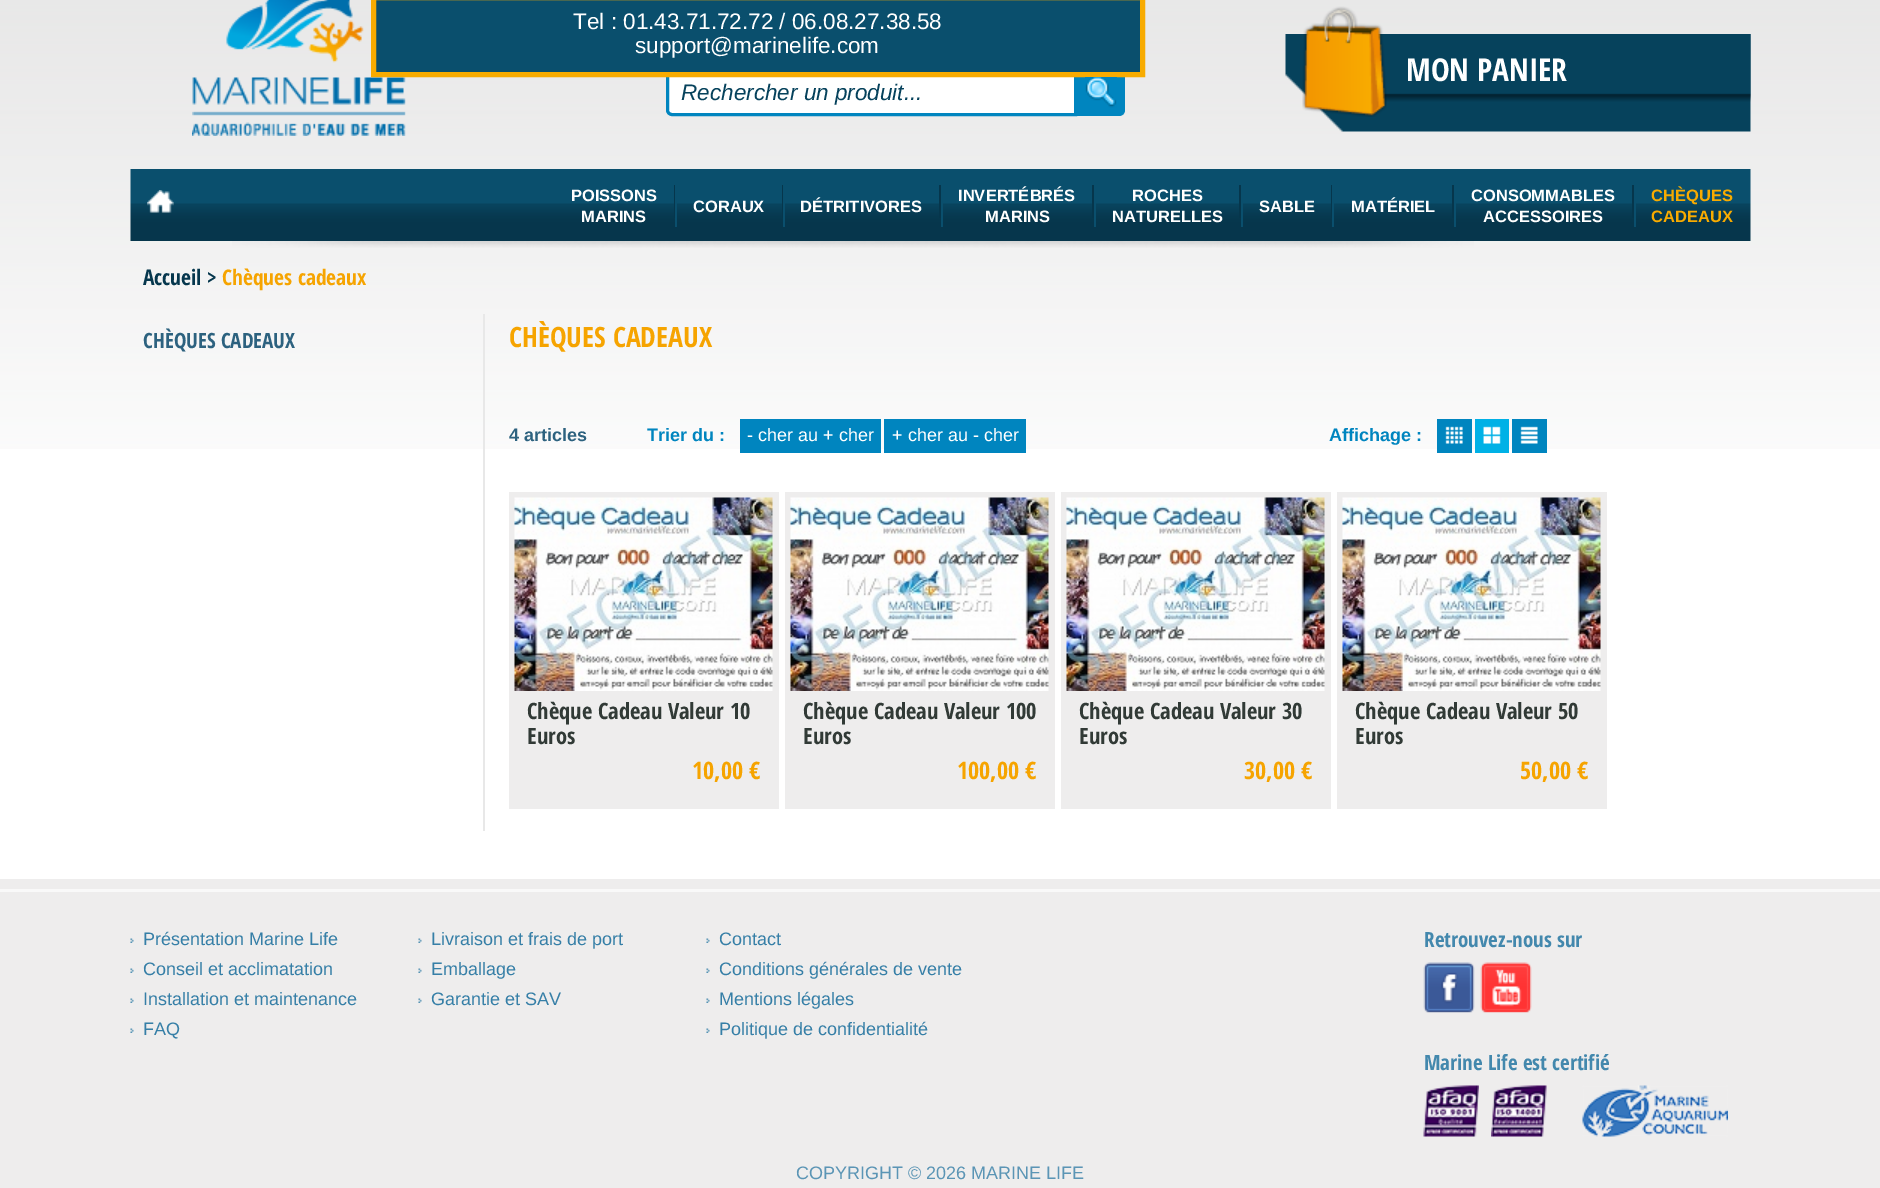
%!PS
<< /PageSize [1880 1188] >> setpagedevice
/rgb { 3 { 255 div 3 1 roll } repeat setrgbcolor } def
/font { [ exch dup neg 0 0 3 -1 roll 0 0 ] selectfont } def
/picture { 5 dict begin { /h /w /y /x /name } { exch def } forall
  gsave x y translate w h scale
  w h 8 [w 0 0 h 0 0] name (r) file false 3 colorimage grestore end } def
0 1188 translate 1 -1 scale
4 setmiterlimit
255 255 255 rgb
0 0 1880 1188 rectfill
(img/1.rgb) 0 0 1880 449 picture
(img/2.rgb) 192 0 214 136 picture
672 69.5 moveto 1075.5 69.5 lineto 1075.5 114.5 lineto 672 114.5 lineto 669.5 114.5 667.5 112.5 667.5 110 curveto 667.5 74 lineto 667.5 71.5 669.5 69.5 672 69.5 curveto closepath gsave fill grestore
0 133 191 rgb
3 setlinewidth
stroke
1077 68 moveto 1119 68 lineto 1122.5 68 1125 70.5 1125 74 curveto 1125 110 lineto 1125 113.5 1122.5 116 1119 116 curveto 1077 116 lineto closepath fill
10 79 109 rgb
373.5 -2.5 moveto 1142.5 -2.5 lineto 1142.5 74.5 lineto 373.5 74.5 lineto closepath gsave fill grestore
248 171 0 rgb
5 setlinewidth
stroke
(img/3.rgb) 1285 34 466 98 picture
(img/5.rgb) 1378 34 373 68 picture
(img/4.rgb) 1302 6 85 111 picture
(img/6.rgb) 1085 77 32 31 picture
(img/8.rgb) 130 169 1621 72 picture
(img/7.rgb) 147 190 27 23 picture
[
  [674 185 1 33 6 54 76]
  [782 185 1 33 6 54 76]
  [675 203 2 24 10 79 109]
  [939 185 2 33 6 54 76]
  [783 203 2 24 10 79 109]
  [1092 185 2 33 6 54 76]
  [941 203 2 24 10 79 109]
  [1239 185 2 33 6 54 76]
  [1094 203 2 24 10 79 109]
  [1331 185 1 33 6 54 76]
  [1241 203 2 24 10 79 109]
  [1452 185 2 33 6 54 76]
  [1332 203 2 24 10 79 109]
  [1632 185 2 33 6 54 76]
  [1454 203 2 24 10 79 109]
  [1634 203 2 24 10 79 109]
] { aload pop rgb rectfill } forall
(img/9.rgb) 232 241 1242 7 picture
[
  [483 314 2 517 232 232 232]
  [740 419 141 34 0 133 191]
  [884 419 142 34 0 133 191]
  [1437 419 35 34 0 133 191]
] { aload pop rgb rectfill } forall
(img/10.rgb) 1445 426 18 18 picture
0 177 230 rgb
1475 419 34 34 rectfill
(img/11.rgb) 1483 426 18 18 picture
0 133 191 rgb
1512 419 35 34 rectfill
(img/12.rgb) 1520 426 18 18 picture
238 237 237 rgb
509 492 270 317 rectfill
(img/13.rgb) 514 497 259 194 picture
785 492 270 317 rectfill
(img/14.rgb) 790 497 259 194 picture
1061 492 270 317 rectfill
(img/15.rgb) 1066 497 259 194 picture
1337 492 270 317 rectfill
(img/16.rgb) 1342 497 259 194 picture
0 879 1880 309 rectfill
249 249 249 rgb
0 889 1880 3 rectfill
(img/17.rgb) 130 938 4 5 picture
(img/17.rgb) 130 968 4 5 picture
(img/17.rgb) 130 998 4 5 picture
(img/17.rgb) 130 1028 4 5 picture
(img/17.rgb) 418 938 4 5 picture
(img/17.rgb) 418 968 4 5 picture
(img/17.rgb) 418 998 4 5 picture
(img/17.rgb) 706 938 4 5 picture
(img/17.rgb) 706 968 4 5 picture
(img/17.rgb) 706 998 4 5 picture
(img/17.rgb) 706 1028 4 5 picture
(img/18.rgb) 1423 962 52 51 picture
(img/19.rgb) 1480 962 52 51 picture
(img/20.rgb) 1423 1085 56 52 picture
(img/21.rgb) 1491 1085 56 52 picture
(img/22.rgb) 1582 1085 146 52 picture
/LiberationSans-Regular 22.5 font
255 255 255 rgb
573 29 moveto (Tel : 01.43.71.72.72 / 06.08.27.38.58) show
635 53 moveto (support@marinelife.com) show
/OpenSansCondensed-Bold 31.5 font
1406 81 moveto (MON PANIER) show
/LiberationSans-Italic 22.5 font
6 66 92 rgb
681 100 moveto (Rechercher un produit...) show
/LiberationSans-Bold 16.5 font
255 255 255 rgb
[
  [(POISSONS) 571 201]
  [(MARINS) 581 222]
  [(CORAUX) 693 212]
  [(DÉTRITIVORES) 800 212]
  [(INVERTÉBRÉS) 958 201]
  [(MARINS) 985 222]
  [(ROCHES) 1132 201]
  [(NATURELLES) 1112 222]
  [(SABLE) 1259 212]
  [(MATÉRIEL) 1351 212]
  [(CONSOMMABLES) 1471 201]
  [(ACCESSOIRES) 1483 222]
] { aload pop moveto show } forall
248 171 0 rgb
1651 201 moveto (CHÈQUES) show
1651 222 moveto (CADEAUX) show
/OpenSansCondensed-Bold 21.5 font
6 55 77 rgb
143 285 moveto (Accueil >) show
246 164 0 rgb
222 285 moveto (Chèques cadeaux) show
/OpenSansCondensed-Bold 21 font
45 98 127 rgb
143 348 moveto (CHÈQUES CADEAUX) show
/OpenSansCondensed-Bold 28 font
246 164 0 rgb
509 347 moveto (CHÈQUES CADEAUX) show
/LiberationSans-Bold 18 font
45 98 127 rgb
509 441 moveto (4 articles) show
0 133 191 rgb
647 441 moveto (Trier du :) show
/LiberationSans-Regular 18 font
255 255 255 rgb
747 441 moveto (- cher au + cher) show
892 441 moveto (+ cher au - cher) show
/LiberationSans-Bold 18 font
0 133 191 rgb
1329 441 moveto (Affichage :) show
/OpenSansCondensed-Bold 22.5 font
49 58 54 rgb
527 719 moveto (Chèque Cadeau Valeur 10) show
527 744 moveto (Euros) show
/OpenSansCondensed-Bold 24 font
246 164 0 rgb
692 779 moveto (10,00 €) show
/OpenSansCondensed-Bold 22.5 font
49 58 54 rgb
803 719 moveto (Chèque Cadeau Valeur 100) show
803 744 moveto (Euros) show
/OpenSansCondensed-Bold 24 font
246 164 0 rgb
957 779 moveto (100,00 €) show
/OpenSansCondensed-Bold 22.5 font
49 58 54 rgb
1079 719 moveto (Chèque Cadeau Valeur 30) show
1079 744 moveto (Euros) show
/OpenSansCondensed-Bold 24 font
246 164 0 rgb
1244 779 moveto (30,00 €) show
/OpenSansCondensed-Bold 22.5 font
49 58 54 rgb
1355 719 moveto (Chèque Cadeau Valeur 50) show
1355 744 moveto (Euros) show
/OpenSansCondensed-Bold 24 font
246 164 0 rgb
1520 779 moveto (50,00 €) show
/LiberationSans-Regular 18 font
54 127 167 rgb
[
  [(Présentation Marine Life) 143 945]
  [(Conseil et acclimatation) 143 975]
  [(Installation et maintenance) 143 1005]
  [(FAQ) 143 1035]
  [(Livraison et frais de port) 431 945]
  [(Emballage) 431 975]
  [(Garantie et SAV) 431 1005]
  [(Contact) 719 945]
  [(Conditions générales de vente) 719 975]
  [(Mentions légales) 719 1005]
  [(Politique de confidentialité) 719 1035]
] { aload pop moveto show } forall
/OpenSansCondensed-Bold 21 font
67 136 173 rgb
1424 947 moveto (Retrouvez-nous sur) show
1424 1070 moveto (Marine Life est certifié) show
/LiberationSans-Regular 18 font
91 149 181 rgb
796 1179 moveto (COPYRIGHT © 2026 MARINE LIFE) show
showpage
